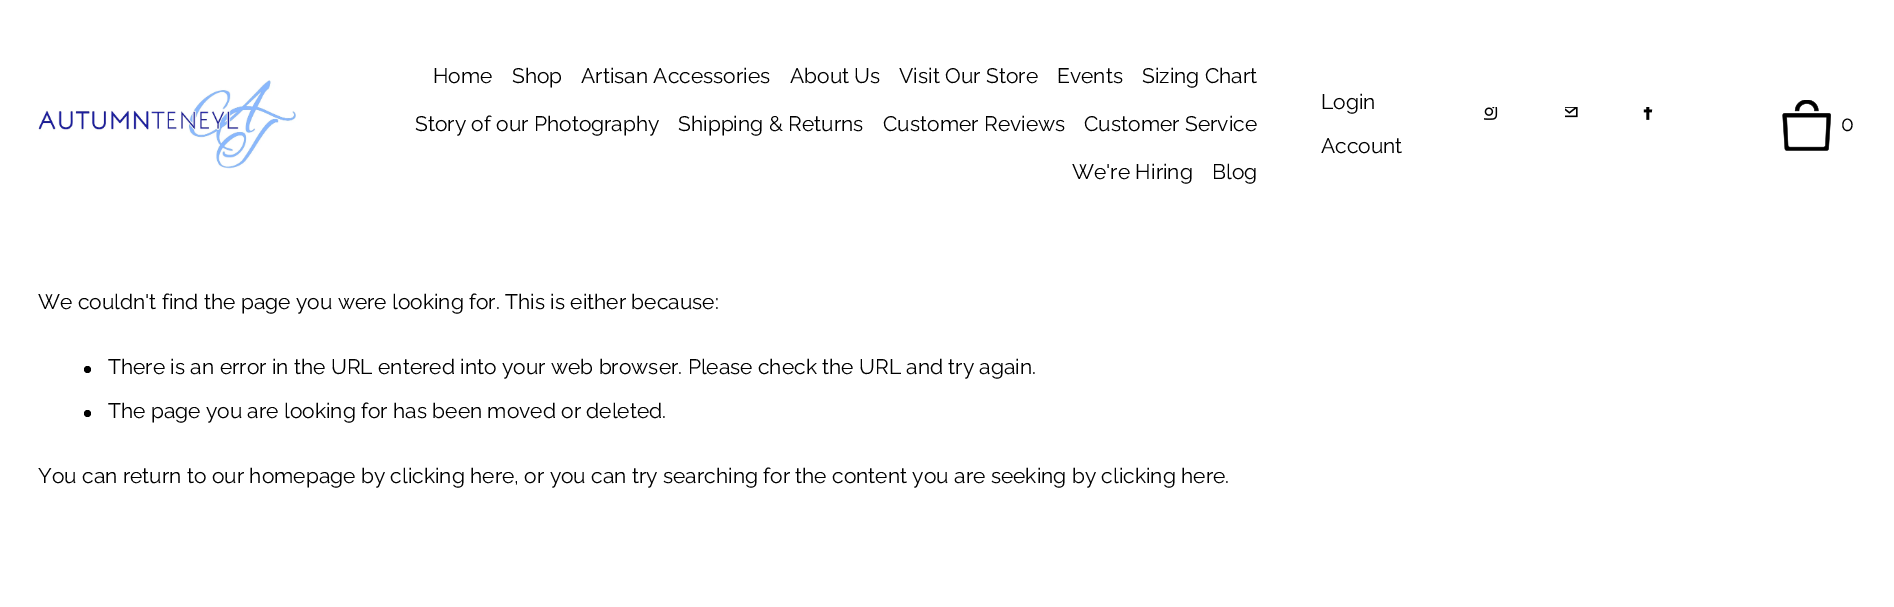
%!PS
<< /PageSize [1894 607] >> setpagedevice
/rgb { 3 { 255 div 3 1 roll } repeat setrgbcolor } def
/font { [ exch dup neg 0 0 3 -1 roll 0 0 ] selectfont } def
/circle { newpath 0 360 arc closepath } def
/picture { 5 dict begin { /h /w /y /x /name } { exch def } forall
  gsave x y translate w h scale
  w h 8 [w 0 0 h 0 0] name (r) file false 3 colorimage grestore end } def
0 607 translate 1 -1 scale
4 setmiterlimit
255 255 255 rgb
0 0 1894 607 rectfill
(img/1.rgb) 38 80 258 89 picture
(img/2.rgb) 1484 107 14 13 picture
(img/3.rgb) 1565 107 13 11 picture
(img/4.rgb) 1643 107 10 13 picture
(img/5.rgb) 1782 100 49 51 picture
0 0 0 rgb
87.5 369.5 3.5 circle fill
87.5 413.5 3.5 circle fill
/Raleway-Regular 21 font
[
  [(Home) 433 83]
  [(Shop) 512 83]
  [(Artisan Accessories) 581 83]
  [(About Us) 790 83]
  [(Visit Our Store) 899 83]
  [(Events) 1057 83]
  [(Sizing Chart) 1142 83]
  [(Story of our Photography) 415 131]
  [(Shipping & Returns) 678 131]
  [(Customer Reviews) 883 131]
  [(Customer Service) 1084 131]
  [(We're Hiring) 1072 179]
  [(Blog) 1212 179]
  [(Login) 1321 109]
  [(Account) 1321 153]
  [(0) 1841 131]
  [(We couldn't find the page you were looking for. This is either because:) 38 309]
  [(There is an error in the URL entered into your web browser. Please check the URL and try again.) 108 374]
  [(The page you are looking for has been moved or deleted.) 108 418]
  [(You can return to our homepage by clicking here, or you can try searching for the content you are seeking by clicking here.) 38 483]
] { aload pop moveto show } forall
showpage
